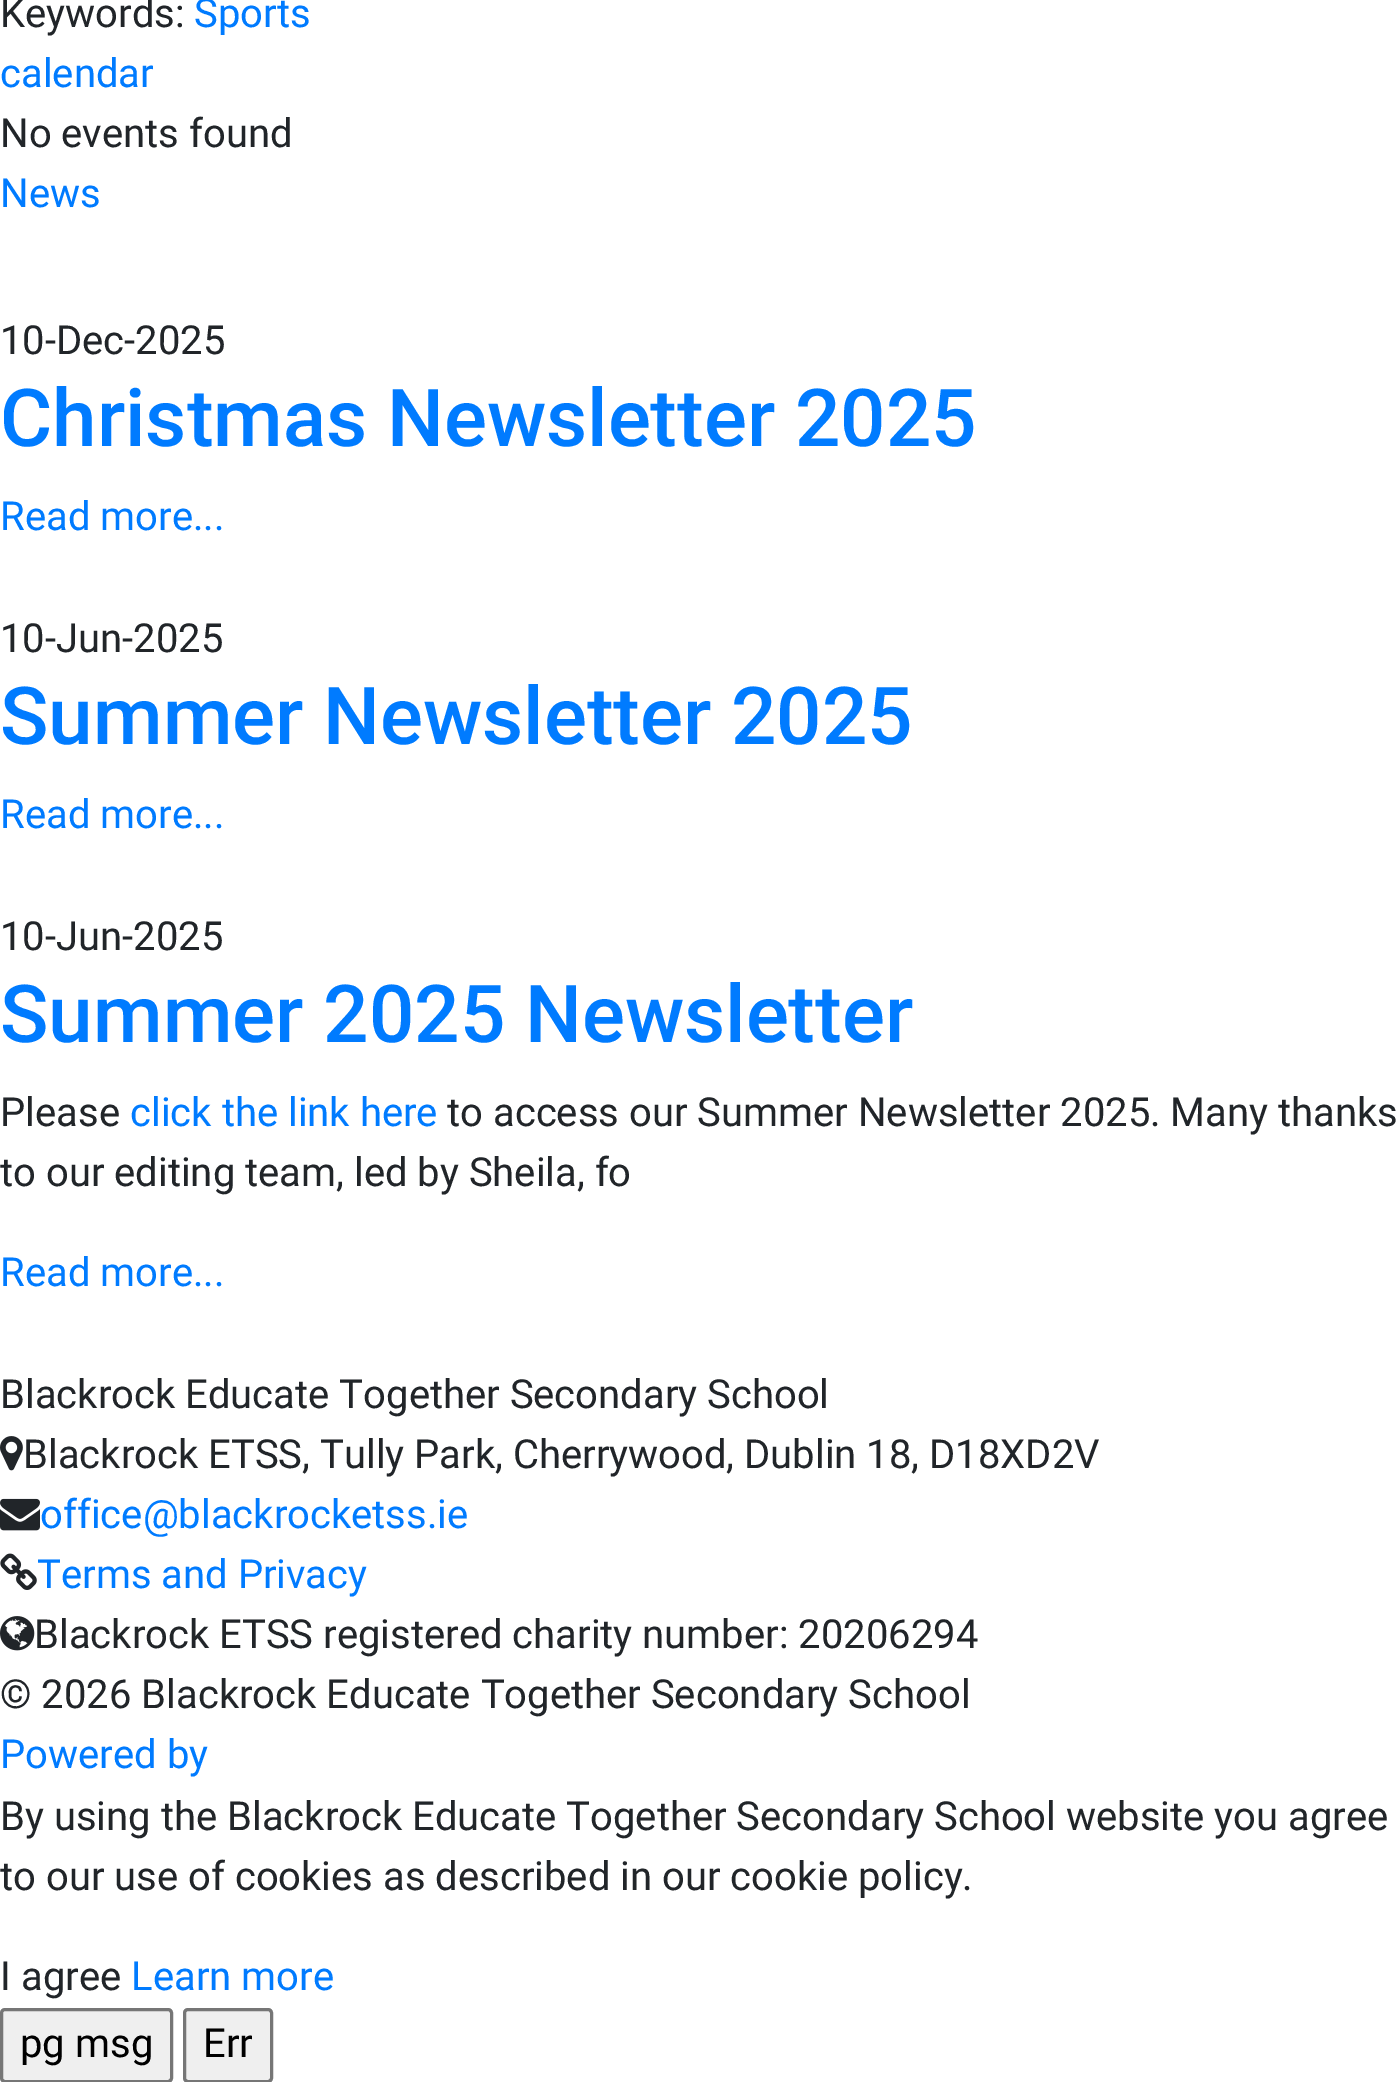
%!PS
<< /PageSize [1399 2082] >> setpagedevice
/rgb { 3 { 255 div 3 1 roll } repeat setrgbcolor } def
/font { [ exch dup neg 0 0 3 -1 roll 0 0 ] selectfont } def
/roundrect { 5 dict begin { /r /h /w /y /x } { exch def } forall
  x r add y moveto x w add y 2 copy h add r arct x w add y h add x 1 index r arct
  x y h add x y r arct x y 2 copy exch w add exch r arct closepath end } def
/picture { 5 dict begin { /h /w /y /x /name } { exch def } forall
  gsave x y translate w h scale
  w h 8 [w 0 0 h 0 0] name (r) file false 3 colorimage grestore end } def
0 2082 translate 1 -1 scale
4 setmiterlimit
255 255 255 rgb
0 0 1399 2082 rectfill
(img/1.rgb) 0 1436 23 35 picture
(img/2.rgb) 0 1498 40 33 picture
(img/3.rgb) 0 1553 37 37 picture
(img/4.rgb) 0 1616 35 35 picture
239 239 239 rgb
1.5 2009.5 170 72 3.5 roundrect gsave fill grestore
118 118 118 rgb
3 setlinewidth
stroke
239 239 239 rgb
184.5 2009.5 87 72 3.5 roundrect gsave fill grestore
118 118 118 rgb
stroke
/Roboto-Regular 40 font
33 37 41 rgb
0 27 moveto (Keywords:) show
0 123 255 rgb
194 27 moveto (Sports) show
0 87 moveto (calendar) show
33 37 41 rgb
0 147 moveto (No events found) show
0 123 255 rgb
0 207 moveto (News) show
33 37 41 rgb
0 354 moveto (10-Dec-2025) show
/Roboto-Medium 80 font
0 123 255 rgb
0 446 moveto (Christmas Newsletter 2025) show
/Roboto-Regular 40 font
0 530 moveto (Read more...) show
33 37 41 rgb
0 652 moveto (10-Jun-2025) show
/Roboto-Medium 80 font
0 123 255 rgb
0 744 moveto (Summer Newsletter 2025) show
/Roboto-Regular 40 font
0 828 moveto (Read more...) show
33 37 41 rgb
0 950 moveto (10-Jun-2025) show
/Roboto-Medium 80 font
0 123 255 rgb
0 1042 moveto (Summer 2025 Newsletter) show
/Roboto-Regular 40 font
33 37 41 rgb
0 1126 moveto (Please) show
0 123 255 rgb
130 1126 moveto (click the link here) show
33 37 41 rgb
447 1126 moveto (to access our Summer Newsletter 2025. Many thanks) show
0 1186 moveto (to our editing team, led by Sheila, fo) show
0 123 255 rgb
0 1286 moveto (Read more...) show
33 37 41 rgb
0 1408 moveto (Blackrock Educate Together Secondary School) show
23 1468 moveto (Blackrock ETSS, Tully Park, Cherrywood, Dublin 18, D18XD2V) show
0 123 255 rgb
40 1528 moveto (office@blackrocketss.ie) show
37 1588 moveto (Terms and Privacy) show
33 37 41 rgb
34 1648 moveto (Blackrock ETSS registered charity number: 20206294) show
0 1708 moveto (© 2026 Blackrock Educate Together Secondary School) show
0 123 255 rgb
0 1768 moveto (Powered by) show
33 37 41 rgb
[
  [(By using the Blackrock Educate Together Secondary School website you agree) 0 1830]
  [(to our use of cookies as described in our cookie policy.) 0 1890]
  [(I agree) 0 1990]
] { aload pop moveto show } forall
0 123 255 rgb
131 1990 moveto (Learn more) show
0 0 0 rgb
20 2057 moveto (pg msg) show
203 2057 moveto (Err) show
showpage
